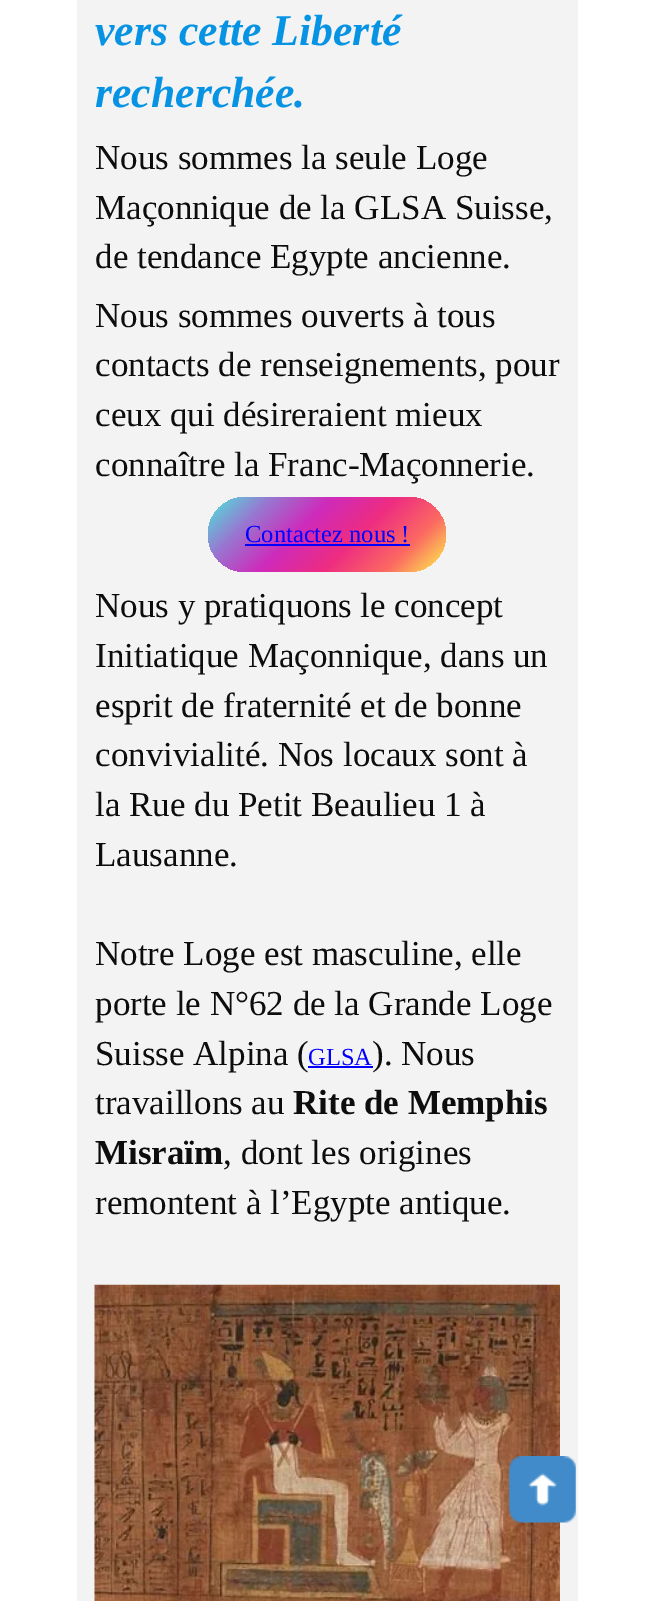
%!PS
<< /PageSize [653 1601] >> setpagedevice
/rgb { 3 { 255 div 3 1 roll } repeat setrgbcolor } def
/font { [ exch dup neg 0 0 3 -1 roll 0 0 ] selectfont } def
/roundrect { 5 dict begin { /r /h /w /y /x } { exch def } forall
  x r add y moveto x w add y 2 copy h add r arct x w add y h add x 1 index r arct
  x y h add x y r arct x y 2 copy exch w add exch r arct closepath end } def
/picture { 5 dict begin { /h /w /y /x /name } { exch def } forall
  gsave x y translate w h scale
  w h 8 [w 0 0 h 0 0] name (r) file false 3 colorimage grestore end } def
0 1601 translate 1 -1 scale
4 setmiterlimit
255 255 255 rgb
0 0 653 1601 rectfill
243 243 243 rgb
77 0 501 1601 rectfill
gsave 208 497 238 75 37.5 roundrect clip newpath
<< /ShadingType 2 /ColorSpace /DeviceRGB /Coords [249 456 406 613] /Extend [true true] /Function << /FunctionType 3 /Domain [0 1] /Functions [<< /FunctionType 2 /Domain [0 1] /C0 [0.29 0.918 0.863] /C1 [0.592 0.471 0.82] /N 1 >> << /FunctionType 2 /Domain [0 1] /C0 [0.592 0.471 0.82] /C1 [0.812 0.165 0.729] /N 1 >> << /FunctionType 2 /Domain [0 1] /C0 [0.812 0.165 0.729] /C1 [0.933 0.173 0.51] /N 1 >> << /FunctionType 2 /Domain [0 1] /C0 [0.933 0.173 0.51] /C1 [0.984 0.412 0.384] /N 1 >> << /FunctionType 2 /Domain [0 1] /C0 [0.984 0.412 0.384] /C1 [0.996 0.973 0.298] /N 1 >>] /Bounds [0.2 0.4 0.6 0.8] /Encode [0 1 0 1 0 1 0 1 0 1] >> >> shfill grestore
0 0 255 rgb
245 544 165 2 rectfill
308 1066 65 2 rectfill
(img/1.rgb) 94 1284 466 317 picture
(img/2.rgb) 509 1456 67 67 picture
/LiberationSerif-BoldItalic 43.75 font
6 147 227 rgb
95 45 moveto (vers cette Liberté) show
95 107 moveto (recherchée.) show
/LiberationSerif-Regular 35 font
13 13 13 rgb
[
  [(Nous sommes la seule Loge) 95 169]
  [(Maçonnique de la GLSA Suisse,) 95 219]
  [(de tendance Egypte ancienne.) 95 268]
  [(Nous sommes ouverts à tous) 95 327]
  [(contacts de renseignements, pour) 95 376]
  [(ceux qui désireraient mieux) 95 426]
  [(connaître la Franc-Maçonnerie.) 95 476]
] { aload pop moveto show } forall
/LiberationSerif-Regular 24.5 font
0 0 255 rgb
245 542 moveto (Contactez nous !) show
/LiberationSerif-Regular 35 font
13 13 13 rgb
[
  [(Nous y pratiquons le concept) 95 617]
  [(Initiatique Maçonnique, dans un) 95 667]
  [(esprit de fraternité et de bonne) 95 717]
  [(convivialité. Nos locaux sont à) 95 766]
  [(la Rue du Petit Beaulieu 1 à) 95 816]
  [(Lausanne.) 95 866]
  [(Notre Loge est masculine, elle) 95 965]
  [(porte le N°62 de la Grande Loge) 95 1015]
  [(Suisse Alpina \() 95 1065]
] { aload pop moveto show } forall
/LiberationSerif-Regular 24.5 font
0 0 255 rgb
308 1065 moveto (GLSA) show
/LiberationSerif-Regular 35 font
13 13 13 rgb
372 1065 moveto (\). Nous) show
95 1114 moveto (travaillons au) show
/LiberationSerif-Bold 35 font
293 1114 moveto (Rite de Memphis) show
95 1164 moveto (Misraïm) show
/LiberationSerif-Regular 35 font
223 1164 moveto (, dont les origines) show
95 1214 moveto (remontent à l’Egypte antique.) show
showpage
